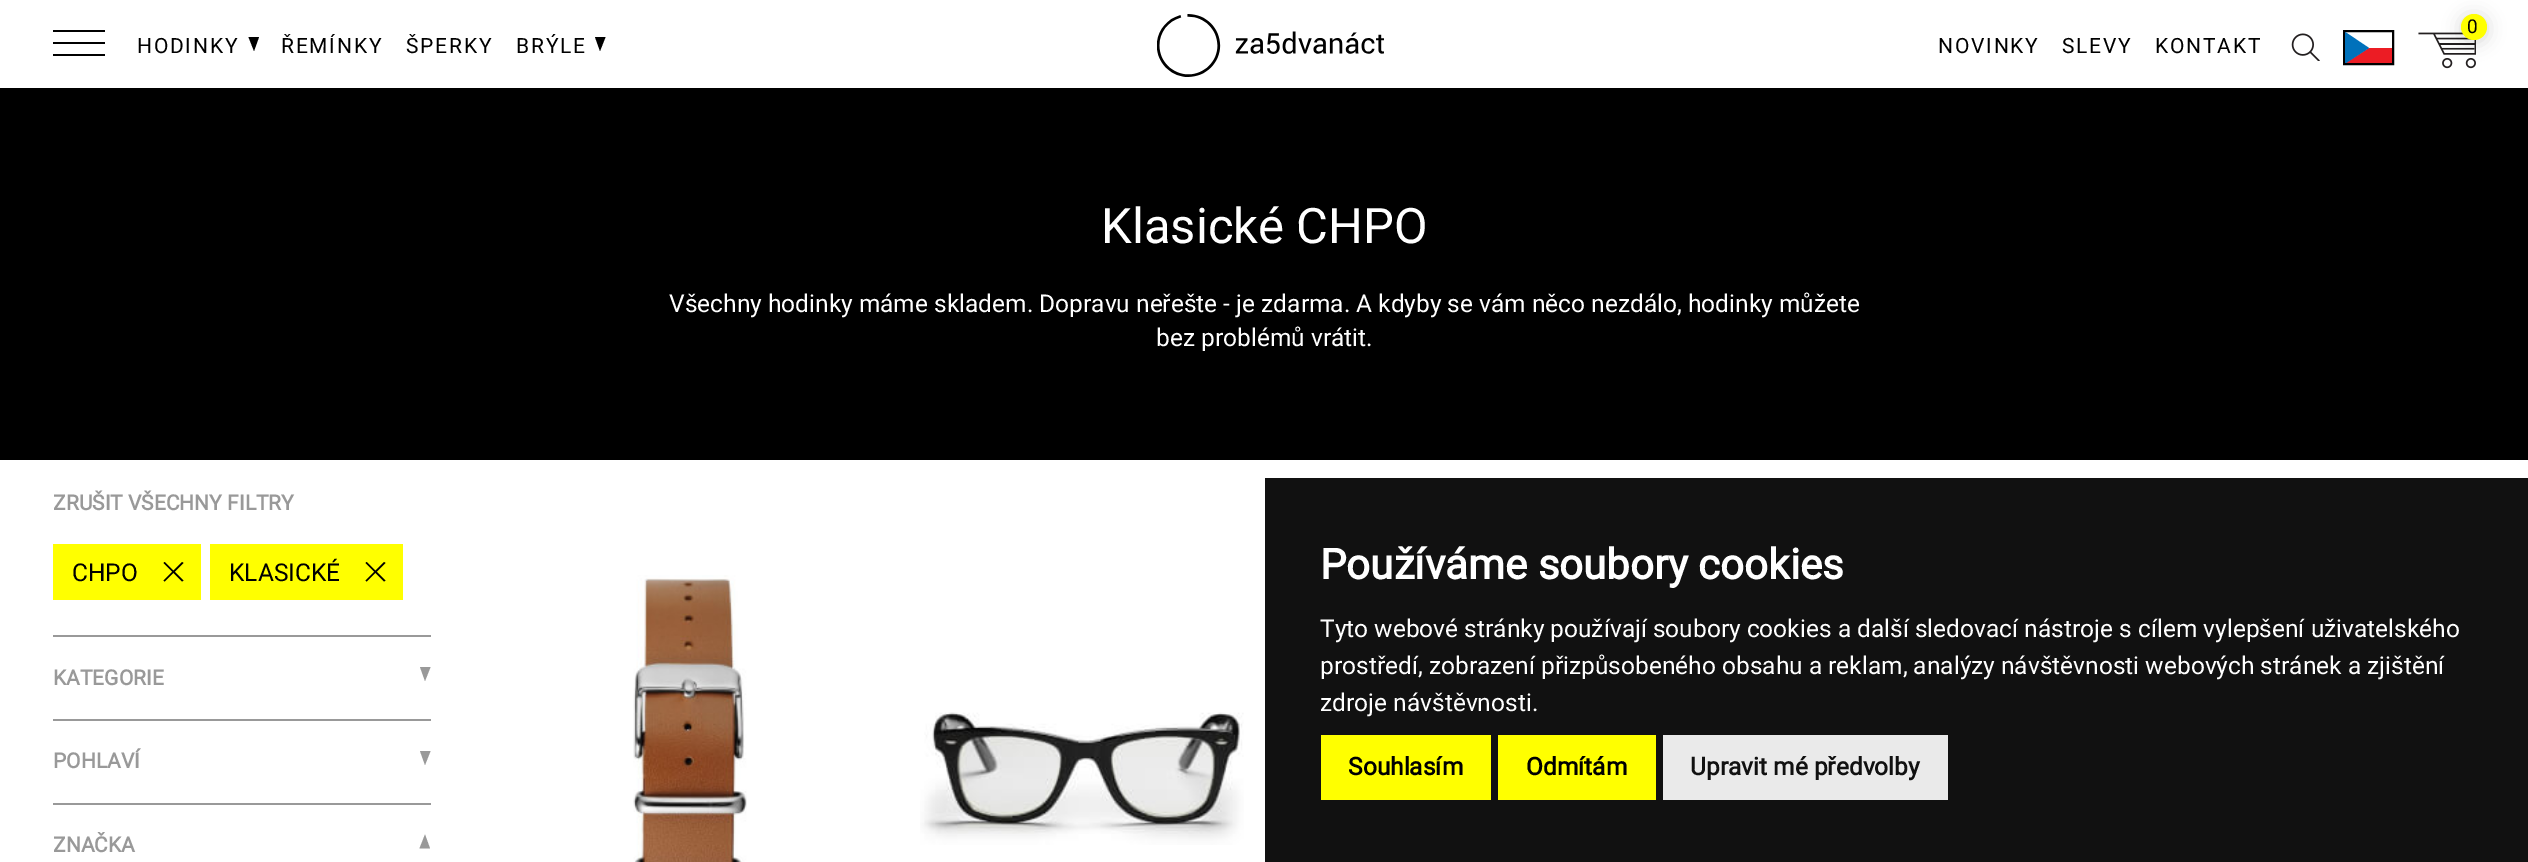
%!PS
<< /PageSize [2528 862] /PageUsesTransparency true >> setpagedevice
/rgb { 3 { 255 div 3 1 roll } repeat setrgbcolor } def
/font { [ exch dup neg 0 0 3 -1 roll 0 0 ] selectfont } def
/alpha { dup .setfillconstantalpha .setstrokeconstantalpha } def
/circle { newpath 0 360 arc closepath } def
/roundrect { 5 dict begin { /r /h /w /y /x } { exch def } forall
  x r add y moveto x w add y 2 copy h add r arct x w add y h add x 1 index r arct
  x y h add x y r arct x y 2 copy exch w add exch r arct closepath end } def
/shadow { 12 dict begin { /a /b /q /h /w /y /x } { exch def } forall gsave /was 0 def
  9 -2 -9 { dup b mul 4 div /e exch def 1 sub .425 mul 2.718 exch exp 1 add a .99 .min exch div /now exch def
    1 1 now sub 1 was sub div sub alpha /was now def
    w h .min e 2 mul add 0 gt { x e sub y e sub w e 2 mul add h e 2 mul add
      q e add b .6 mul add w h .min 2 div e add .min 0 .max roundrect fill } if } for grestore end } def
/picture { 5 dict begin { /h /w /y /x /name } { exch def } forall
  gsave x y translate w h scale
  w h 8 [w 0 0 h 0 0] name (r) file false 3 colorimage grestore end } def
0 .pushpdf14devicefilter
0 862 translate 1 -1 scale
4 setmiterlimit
255 255 255 rgb
0 0 2528 862 rectfill
0 0 0 rgb
0 88 2528 372 rectfill
0 0 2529 88 0 9 0.1 shadow
[
  [0 0 2528 88 255 255 255]
  [53 30 52 2 0 0 0]
  [53 42 52 2 0 0 0]
  [53 54 52 2 0 0 0]
] { aload pop rgb rectfill } forall
248.5 37 moveto 259 37 lineto 254 51 lineto closepath fill
595 37 moveto 605.5 37 lineto 600 51 lineto closepath fill
(img/1.rgb) 1157 14 227 63 picture
(img/2.rgb) 2418 32 58 37 picture
2461 16 26 26 13 9 0.15 shadow
255 255 0 rgb
2474 27 13 circle fill
(img/3.rgb) 2291 33 29 28 picture
0 0 0 rgb
2 setlinewidth
2344 31 49 33 rectstroke
gsave
2345 32 47 31 rectclip
236 28 36 rgb
2369 48 moveto 2344 64 lineto 2393 64 lineto 2393 48 lineto closepath fill
0 113 187 rgb
2344.5 31.5 moveto 2344.5 64 lineto 2369 48 lineto closepath fill
grestore
255 255 0 rgb
53 544 148 56 rectfill
0 0 0 rgb
164.5 562 moveto 183.5 580.5 lineto 182 581.5 lineto 163.5 563 lineto closepath fill
182 562 moveto 183.5 563 lineto 164.5 581.5 lineto 163.5 580.5 lineto closepath fill
255 255 0 rgb
210 544 193 56 rectfill
0 0 0 rgb
366.5 562 moveto 385.5 580.5 lineto 384 581.5 lineto 365.5 563 lineto closepath fill
384 562 moveto 385.5 563 lineto 366.5 581.5 lineto 365.5 580.5 lineto closepath fill
153 153 153 rgb
53 635 378 2 rectfill
420 667 moveto 430.5 667 lineto 425 681 lineto closepath fill
53 719 378 2 rectfill
420 751 moveto 430.5 751 lineto 425 765 lineto closepath fill
53 803 378 2 rectfill
430 848.5 moveto 419.5 848.5 lineto 425 834.5 lineto closepath fill
(img/4.rgb) 633 575 114 287 picture
(img/5.rgb) 920 712 324 133 picture
[
  [1265 478 1263 384 17 17 17]
  [1321 735 170 65 255 255 0]
  [1498 735 158 65 255 255 0]
  [1663 735 285 65 234 234 234]
] { aload pop rgb rectfill } forall
/Roboto-Regular 21 font
0 0 0 rgb
137 53 moveto 1.75 0 (HODINKY) ashow
281 53 moveto 1.75 0 (ŘEMÍNKY) ashow
406 53 moveto 1.75 0 (ŠPERKY) ashow
516 53 moveto 1.75 0 (BRÝLE) ashow
/Roboto-Regular 19 font
2467 33 moveto 1.75 0 (0) ashow
/Roboto-Regular 21 font
1938 53 moveto 1.75 0 (NOVINKY) ashow
2062 53 moveto 1.75 0 (SLEVY) ashow
2155 53 moveto 1.75 0 (KONTAKT) ashow
/Roboto-Regular 49 font
255 255 255 rgb
1101 243 moveto (Klasické CHPO) show
/Roboto-Regular 24.5 font
669 312 moveto (Všechny hodinky máme skladem. Dopravu neřešte - je zdarma. A kdyby se vám něco nezdálo, hodinky můžete) show
1156 346 moveto (bez problémů vrátit.) show
/Roboto-Bold 21 font
153 153 153 rgb
53 510 moveto (ZRUŠIT VŠECHNY FILTRY) show
/Roboto-Regular 24.5 font
0 0 0 rgb
72 581 moveto (CHPO) show
229 581 moveto (KLASICKÉ) show
/Roboto-Bold 21 font
153 153 153 rgb
[
  [(KATEGORIE) 53 685]
  [(POHLAVÍ) 53 768]
  [(ZNAČKA) 53 852]
] { aload pop moveto show } forall
/Roboto-Bold 42 font
255 255 255 rgb
1320 579 moveto (Používáme soubory cookies) show
/Roboto-Regular 24.5 font
[
  [(Tyto webové stránky používají soubory cookies a další sledovací nástroje s cílem vylepšení uživatelského) 1320 637]
  [(prostředí, zobrazení přizpůsobeného obsahu a reklam, analýzy návštěvnosti webových stránek a zjištění) 1320 674]
  [(zdroje návštěvnosti.) 1320 711]
] { aload pop moveto show } forall
/Roboto-Bold 24.5 font
0 0 0 rgb
1348 775 moveto (Souhlasím) show
1526 775 moveto (Odmítám) show
17 17 17 rgb
1690 775 moveto (Upravit mé předvolby) show
.poppdf14devicefilter showpage
